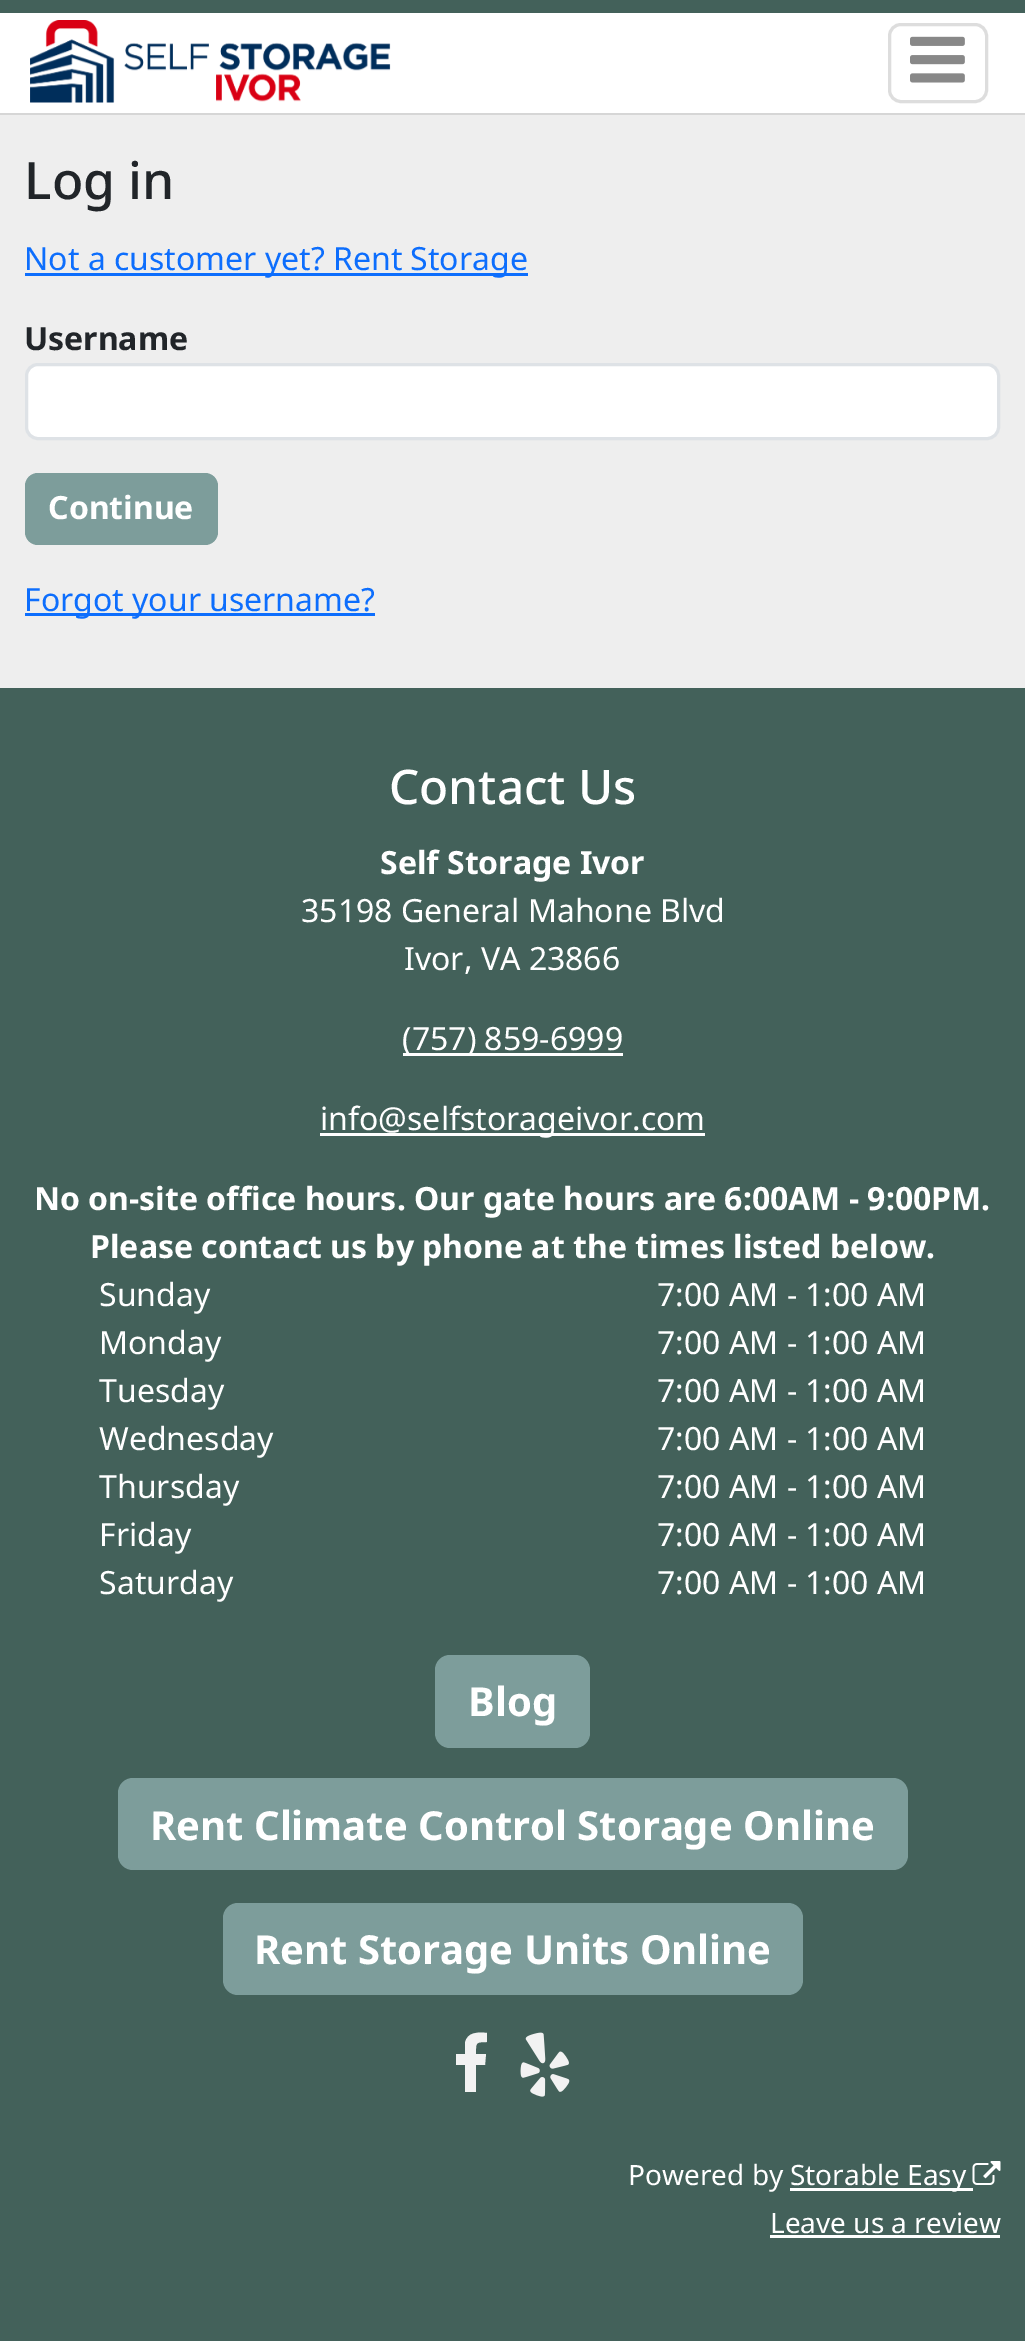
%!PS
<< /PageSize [1025 2341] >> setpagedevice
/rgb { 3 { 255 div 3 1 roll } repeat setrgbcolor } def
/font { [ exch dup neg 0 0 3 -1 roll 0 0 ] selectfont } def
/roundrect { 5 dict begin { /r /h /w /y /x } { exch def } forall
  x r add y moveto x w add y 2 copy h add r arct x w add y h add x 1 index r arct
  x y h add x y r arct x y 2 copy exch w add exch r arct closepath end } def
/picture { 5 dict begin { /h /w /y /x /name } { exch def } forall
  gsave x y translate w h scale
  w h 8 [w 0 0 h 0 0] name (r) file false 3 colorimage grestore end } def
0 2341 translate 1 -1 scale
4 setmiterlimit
238 238 238 rgb
0 0 1025 2341 rectfill
[
  [0 113 1025 2 214 214 214]
  [0 13 1025 100 255 255 255]
  [0 0 1025 13 67 97 90]
] { aload pop rgb rectfill } forall
(img/1.rgb) 30 20 361 83 picture
221 221 221 rgb
3 setlinewidth
889.5 24.5 97 77 11.5 roundrect stroke
(img/2.rgb) 910 36 55 47 picture
13 110 253 rgb
25 273 503 3 rectfill
255 255 255 rgb
26.5 364.5 972 74 11.5 roundrect gsave fill grestore
222 226 230 rgb
stroke
125 157 155 rgb
25 473 193 72 13 roundrect fill
[
  [25 613 350 3 13 110 253]
  [0 688 1025 1653 67 97 90]
  [403 1053 220 3 255 255 255]
  [320 1133 385 3 255 255 255]
] { aload pop rgb rectfill } forall
125 157 155 rgb
435 1655 155 93 15 roundrect fill
118 1778 790 92 15 roundrect fill
223 1903 580 92 15 roundrect fill
242 242 242 rgb
487 2033 moveto 487 2042 lineto 475 2042 476 2043 476 2054 curveto 486 2054 lineto 485 2065 lineto 476 2065 lineto 476 2092 lineto 465 2092 lineto 465 2065 lineto 456 2065 lineto 456 2054 lineto 465 2054 lineto 465 2043 lineto 467 2032 478 2032 487 2033 curveto closepath fill
(img/3.rgb) 520 2032 50 65 picture
255 255 255 rgb
790 2188 183 3 rectfill
(img/4.rgb) 972 2161 29 24 picture
770 2235 230 3 rectfill
/NotoSans-Medium 51.5 font
33 37 41 rgb
24 199 moveto (Log in) show
/NotoSans-Regular 32 font
13 110 253 rgb
24 270 moveto (Not a customer yet? Rent Storage) show
/NotoSans-Bold 32 font
33 37 41 rgb
24 350 moveto (Username) show
255 255 255 rgb
48 519 moveto (Continue) show
/NotoSans-Regular 32 font
13 110 253 rgb
24 611 moveto (Forgot your username?) show
/NotoSans-Medium 47.75 font
255 255 255 rgb
389 804 moveto (Contact Us) show
/NotoSans-Bold 32 font
380 874 moveto (Self Storage Ivor) show
/NotoSans-Regular 32 font
[
  [(35198 General Mahone Blvd) 301 922]
  [(Ivor, VA 23866) 404 970]
  [(\(757\) 859-6999) 402 1050]
  [(info@selfstorageivor.com) 320 1130]
] { aload pop moveto show } forall
/NotoSans-Bold 32 font
34 1210 moveto (No on-site office hours. Our gate hours are 6:00AM - 9:00PM.) show
90 1258 moveto (Please contact us by phone at the times listed below.) show
/NotoSans-Regular 32 font
[
  [(Sunday) 99 1306]
  [(7:00 AM - 1:00 AM) 657 1306]
  [(Monday) 99 1354]
  [(7:00 AM - 1:00 AM) 657 1354]
  [(Tuesday) 99 1402]
  [(7:00 AM - 1:00 AM) 657 1402]
  [(Wednesday) 99 1450]
  [(7:00 AM - 1:00 AM) 657 1450]
  [(Thursday) 99 1498]
  [(7:00 AM - 1:00 AM) 657 1498]
  [(Friday) 99 1546]
  [(7:00 AM - 1:00 AM) 657 1546]
  [(Saturday) 99 1594]
  [(7:00 AM - 1:00 AM) 657 1594]
] { aload pop moveto show } forall
/NotoSans-Bold 40 font
[
  [(Blog) 468 1716]
  [(Rent Climate Control Storage Online) 150 1840]
  [(Rent Storage Units Online) 254 1964]
] { aload pop moveto show } forall
/NotoSans-Regular 28 font
[
  [(Powered by) 628 2185]
  [(Storable Easy) 790 2185]
  [(Leave us a review) 770 2233]
] { aload pop moveto show } forall
showpage
